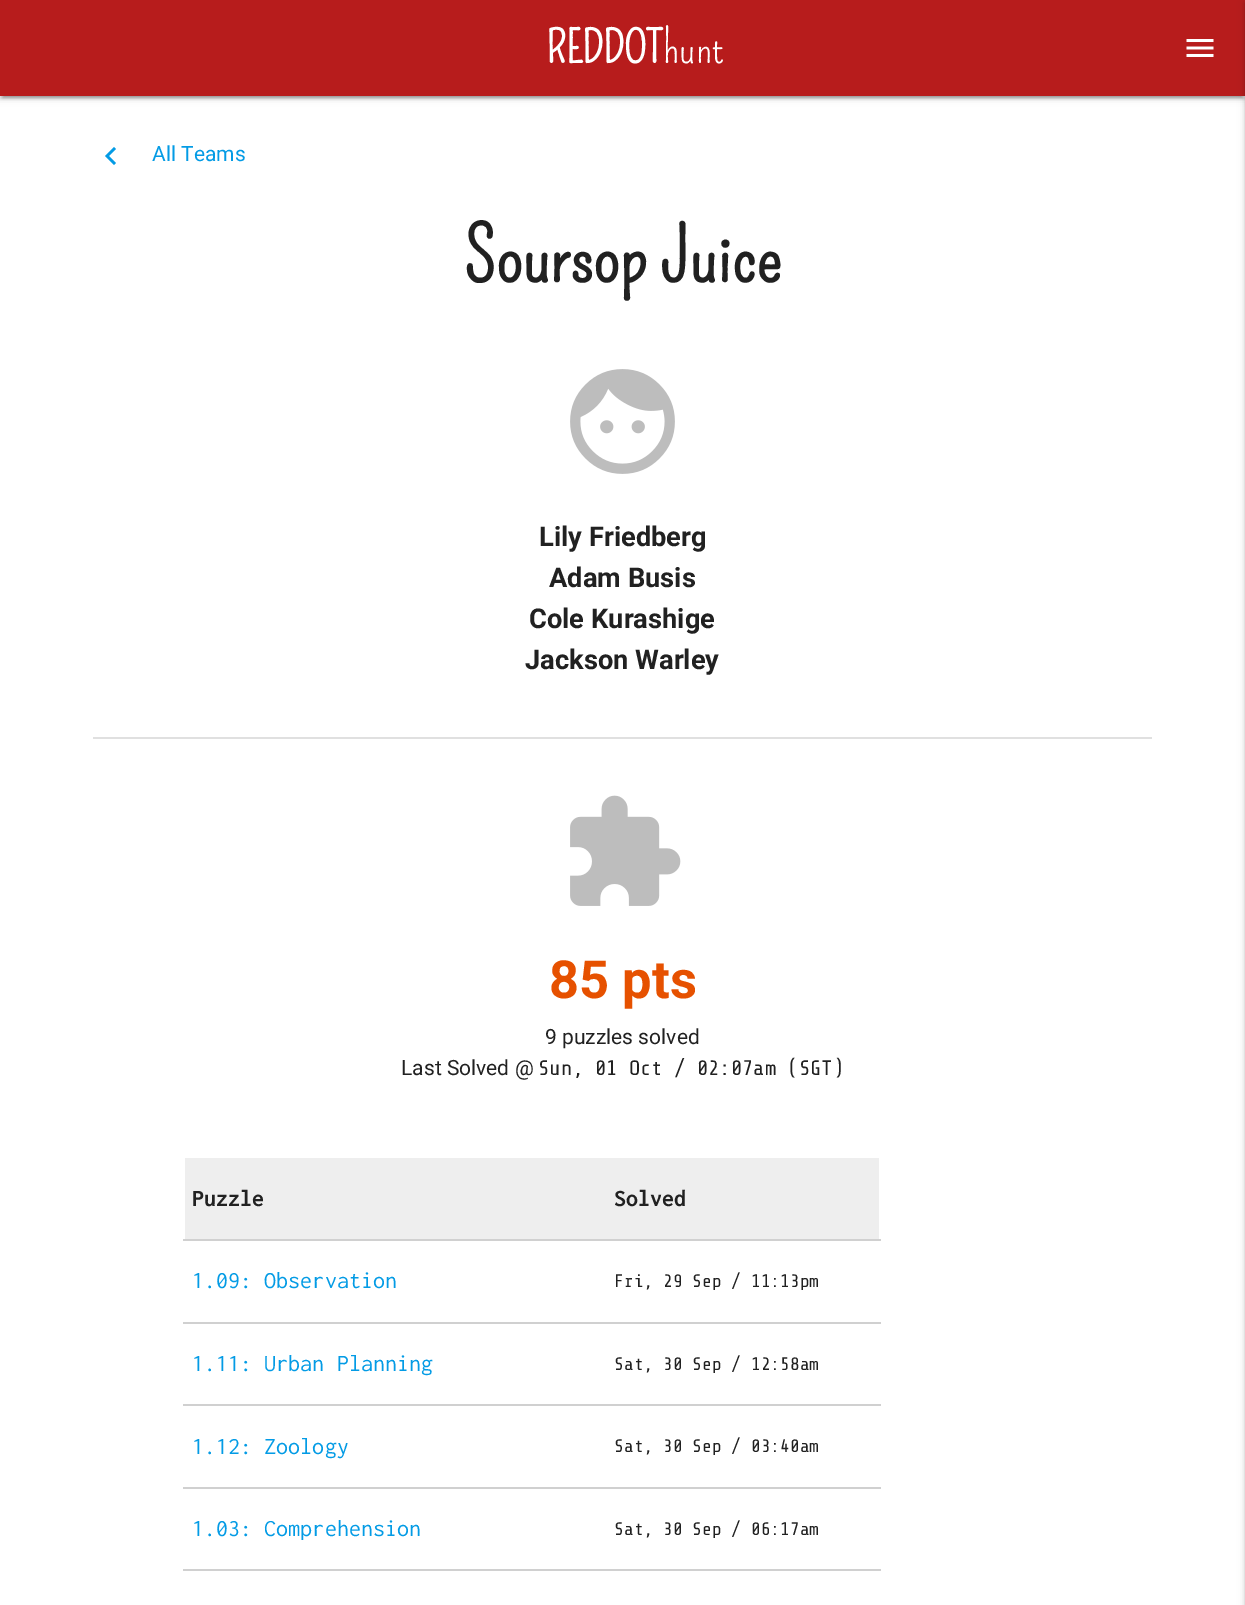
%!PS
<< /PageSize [1245 1605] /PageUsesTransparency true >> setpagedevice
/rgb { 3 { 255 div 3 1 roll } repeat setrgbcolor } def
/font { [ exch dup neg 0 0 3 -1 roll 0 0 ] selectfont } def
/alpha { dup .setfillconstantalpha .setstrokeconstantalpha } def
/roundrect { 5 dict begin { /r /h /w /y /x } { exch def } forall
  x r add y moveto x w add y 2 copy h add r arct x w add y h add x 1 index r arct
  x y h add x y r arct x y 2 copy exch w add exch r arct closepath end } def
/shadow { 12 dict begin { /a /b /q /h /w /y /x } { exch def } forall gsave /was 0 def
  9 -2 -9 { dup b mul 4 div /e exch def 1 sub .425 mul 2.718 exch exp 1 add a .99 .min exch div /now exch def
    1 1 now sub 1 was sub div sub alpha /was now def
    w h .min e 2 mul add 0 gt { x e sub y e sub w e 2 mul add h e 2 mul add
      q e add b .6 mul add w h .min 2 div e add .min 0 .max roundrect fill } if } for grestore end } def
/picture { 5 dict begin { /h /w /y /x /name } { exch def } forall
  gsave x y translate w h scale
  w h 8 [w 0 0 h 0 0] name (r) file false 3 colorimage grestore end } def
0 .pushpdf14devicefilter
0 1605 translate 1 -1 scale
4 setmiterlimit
255 255 255 rgb
0 0 1245 1605 rectfill
0 0 0 rgb
3 8 1239 90 0 1 0.2 shadow
0 2 1245 96 0 4 0.12 shadow
0 3 1245 96 0 1.5 0.14 shadow
183 28 28 rgb
0 0 1245 96 rectfill
(img/1.rgb) 1186 39 28 18 picture
0 0 0 rgb
1245 2 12 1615 0 4 0.12 shadow
1245 3 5 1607 0 1.5 0.14 shadow
3 155 229 rgb
116 149 moveto 109 156 lineto 116 163 lineto 114 165 lineto 105 156 lineto 114 147 lineto closepath fill
(img/2.rgb) 570 369 105 105 picture
224 224 224 rgb
93 737 1059 2 rectfill
(img/3.rgb) 570 795 111 111 picture
[
  [183 1239 698 2 208 208 208]
  [185 1158 694 81 238 238 238]
  [183 1322 698 2 208 208 208]
  [183 1404 698 2 208 208 208]
  [183 1487 698 2 208 208 208]
  [183 1569 698 2 208 208 208]
] { aload pop rgb rectfill } forall
/Pompiere-Bold 44 font
255 255 255 rgb
546 63 moveto (REDDOT) show
/Pompiere-Regular 44 font
663 63 moveto (hunt) show
/Roboto-Regular 21 font
3 155 229 rgb
152 161 moveto (All Teams) show
/Pompiere-Bold 74.75 font
33 33 33 rgb
464 282 moveto (Soursop Juice) show
/Roboto-Bold 27.25 font
[
  [(Lily Friedberg) 539 546]
  [(Adam Busis) 549 587]
  [(Cole Kurashige) 529 628]
  [(Jackson Warley) 525 669]
] { aload pop moveto show } forall
/Roboto-Bold 52.5 font
230 81 0 rgb
549 998 moveto (85 pts) show
/Roboto-Regular 21 font
33 33 33 rgb
545 1044 moveto (9 puzzles solved) show
401 1075 moveto (Last Solved @) show
/ShareTechMono-Regular 21 font
538 1075 moveto (Sun, 01 Oct / 02:07am \(SGT\)) show
/Inconsolata-Bold 24.1 font
192 1206 moveto (Puzzle) show
614 1206 moveto (Solved) show
/Inconsolata-Regular 24.1 font
3 155 229 rgb
192 1288 moveto (1.09: Observation) show
/ShareTechMono-Regular 18.1 font
33 33 33 rgb
614 1287 moveto (Fri, 29 Sep / 11:13pm) show
/Inconsolata-Regular 24.1 font
3 155 229 rgb
192 1371 moveto (1.11: Urban Planning) show
/ShareTechMono-Regular 18.1 font
33 33 33 rgb
614 1370 moveto (Sat, 30 Sep / 12:58am) show
/Inconsolata-Regular 24.1 font
3 155 229 rgb
192 1454 moveto (1.12: Zoology) show
/ShareTechMono-Regular 18.1 font
33 33 33 rgb
614 1452 moveto (Sat, 30 Sep / 03:40am) show
/Inconsolata-Regular 24.1 font
3 155 229 rgb
192 1536 moveto (1.03: Comprehension) show
/ShareTechMono-Regular 18.1 font
33 33 33 rgb
614 1535 moveto (Sat, 30 Sep / 06:17am) show
.poppdf14devicefilter showpage
